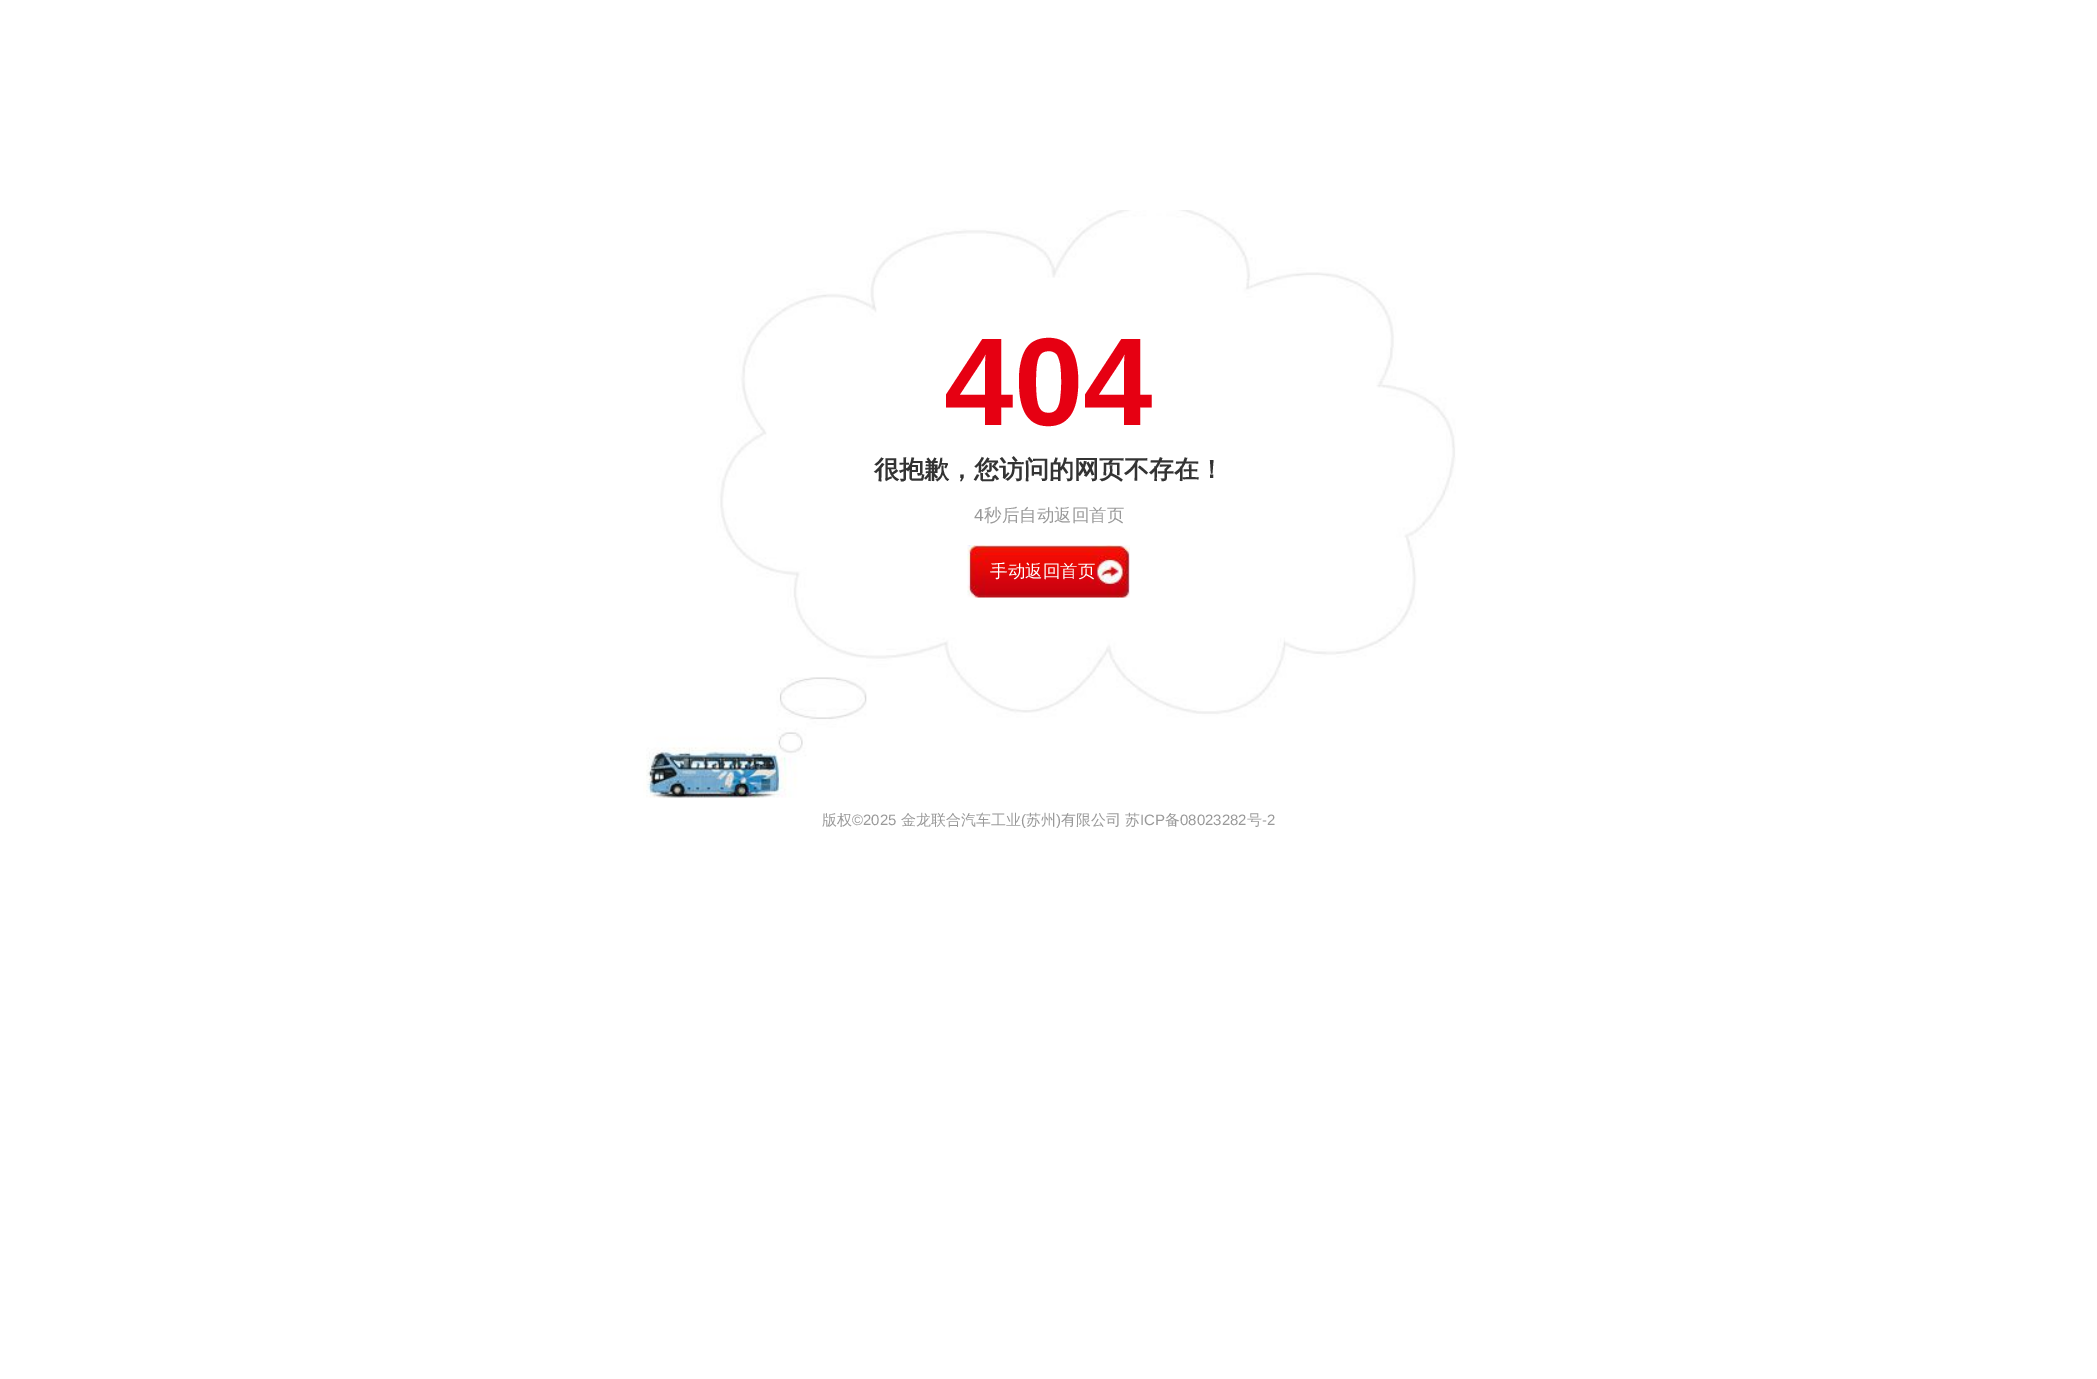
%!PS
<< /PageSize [2097 1379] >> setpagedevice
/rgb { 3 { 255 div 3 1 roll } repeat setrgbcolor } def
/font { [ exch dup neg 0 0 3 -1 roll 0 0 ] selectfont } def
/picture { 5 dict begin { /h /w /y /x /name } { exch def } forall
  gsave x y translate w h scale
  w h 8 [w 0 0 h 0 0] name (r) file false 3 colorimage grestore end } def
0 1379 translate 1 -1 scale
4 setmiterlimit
255 255 255 rgb
0 0 2097 1379 rectfill
(img/1.rgb) 643 210 813 588 picture
(img/2.rgb) 967 545 163 53 picture
/LiberationSans-Bold 125 font
230 0 18 rgb
944 425 moveto (404) show
/WenQuanYiZenHei-Bold 25 font
51 51 51 rgb
874 478 moveto (很抱歉，您访问的网页不存在！) show
/LiberationSans-Regular 17.5 font
153 153 153 rgb
974 521 moveto (4) show
/WenQuanYiZenHei-Medium 17.5 font
984 521 moveto (秒后自动返回首页) show
255 255 255 rgb
990 577 moveto (手动返回首页) show
/WenQuanYiZenHei-Medium 15 font
153 153 153 rgb
822 825 moveto (版权) show
/LiberationSans-Regular 15 font
852 825 moveto (©2025) show
/WenQuanYiZenHei-Medium 15 font
901 825 moveto (金龙联合汽车工业) show
/LiberationSans-Regular 15 font
1021 825 moveto (\() show
/WenQuanYiZenHei-Medium 15 font
1026 825 moveto (苏州) show
/LiberationSans-Regular 15 font
1056 825 moveto (\)) show
/WenQuanYiZenHei-Medium 15 font
1061 825 moveto (有限公司) show
1125 825 moveto (苏) show
/LiberationSans-Regular 15 font
1140 825 moveto (ICP) show
/WenQuanYiZenHei-Medium 15 font
1165 825 moveto (备) show
/LiberationSans-Regular 15 font
1180 825 moveto (08023282) show
/WenQuanYiZenHei-Medium 15 font
1247 825 moveto (号) show
/LiberationSans-Regular 15 font
1262 825 moveto (-2) show
showpage
